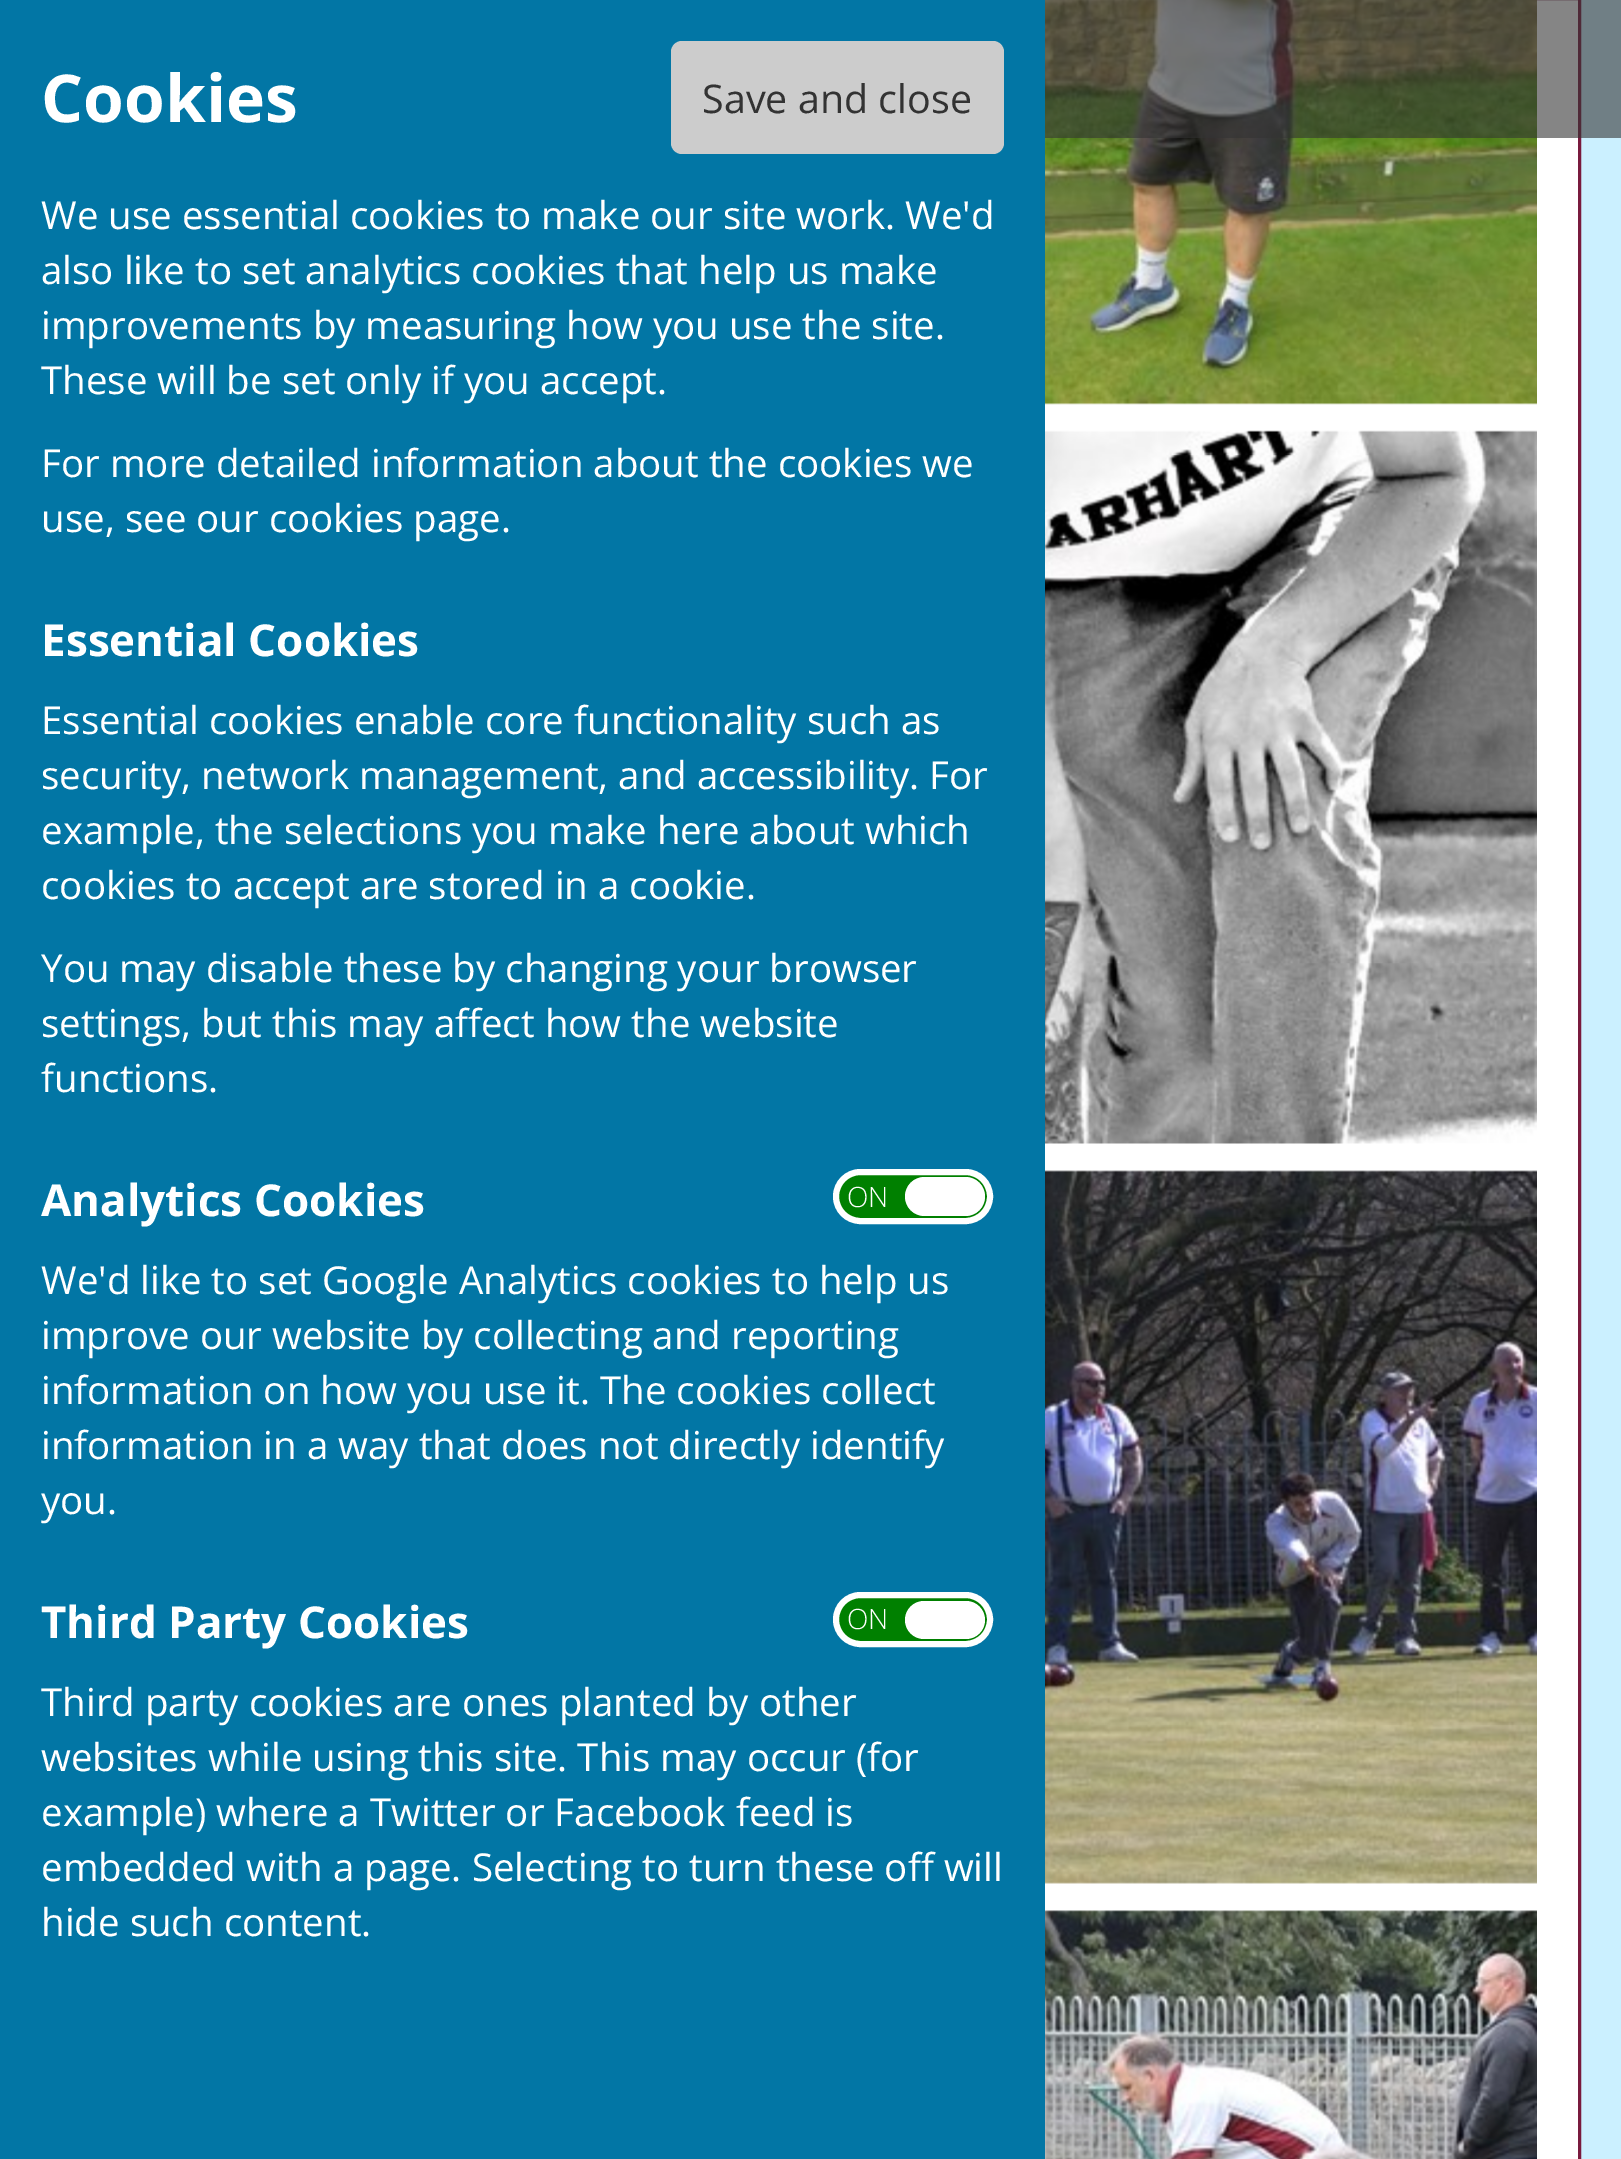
%!PS
<< /PageSize [1621 2159] /PageUsesTransparency true >> setpagedevice
/rgb { 3 { 255 div 3 1 roll } repeat setrgbcolor } def
/font { [ exch dup neg 0 0 3 -1 roll 0 0 ] selectfont } def
/alpha { dup .setfillconstantalpha .setstrokeconstantalpha } def
/roundrect { 5 dict begin { /r /h /w /y /x } { exch def } forall
  x r add y moveto x w add y 2 copy h add r arct x w add y h add x 1 index r arct
  x y h add x y r arct x y 2 copy exch w add exch r arct closepath end } def
/picture { 5 dict begin { /h /w /y /x /name } { exch def } forall
  gsave x y translate w h scale
  w h 8 [w 0 0 h 0 0] name (r) file false 3 colorimage grestore end } def
0 .pushpdf14devicefilter
0 2159 translate 1 -1 scale
4 setmiterlimit
203 240 255 rgb
0 0 1621 2159 rectfill
255 255 255 rgb
1045 0 533 2159 rectfill
121 26 61 rgb
3 setlinewidth
42.5 -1.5 1537 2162 rectstroke
(img/1.rgb) 1045 0 492 405 picture
(img/2.rgb) 1045 430 492 714 picture
(img/3.rgb) 1045 1170 492 714 picture
(img/4.rgb) 1045 1910 492 249 picture
0.6 alpha
51 51 51 rgb
1045 0 576 138 rectfill
1 alpha
2 118 165 rgb
0 0 1045 2159 rectfill
204 204 204 rgb
671 41 333 113 11 roundrect fill
0 128 0 rgb
836 1172 154 49 24.5 roundrect gsave fill grestore
255 255 255 rgb
6 setlinewidth
stroke
905 1177 80 39 19.5 roundrect fill
0 128 0 rgb
836 1595 154 49 24.5 roundrect gsave fill grestore
255 255 255 rgb
stroke
905 1601 80 38 19 roundrect fill
/OpenSans-Bold 66 font
41 122 moveto (Cookies) show
/OpenSans-Regular 39.5 font
51 51 51 rgb
702 113 moveto (Save and close) show
/OpenSans-Regular 38.5 font
255 255 255 rgb
[
  [(We use essential cookies to make our site work. We'd) 41 229]
  [(also like to set analytics cookies that help us make) 41 284]
  [(improvements by measuring how you use the site.) 41 339]
  [(These will be set only if you accept.) 41 394]
  [(For more detailed information about the cookies we) 41 477]
  [(use, see our cookies page.) 41 532]
] { aload pop moveto show } forall
/OpenSans-Bold 44 font
41 656 moveto (Essential Cookies) show
/OpenSans-Regular 38.5 font
[
  [(Essential cookies enable core functionality such as) 41 734]
  [(security, network management, and accessibility. For) 41 789]
  [(example, the selections you make here about which) 41 844]
  [(cookies to accept are stored in a cookie.) 41 899]
  [(You may disable these by changing your browser) 41 982]
  [(settings, but this may affect how the website) 41 1037]
  [(functions.) 41 1092]
] { aload pop moveto show } forall
/OpenSans-Bold 44 font
41 1216 moveto (Analytics Cookies) show
/OpenSans-Light 28 font
847 1207 moveto (ON) show
/OpenSans-Regular 38.5 font
[
  [(We'd like to set Google Analytics cookies to help us) 41 1294]
  [(improve our website by collecting and reporting) 41 1349]
  [(information on how you use it. The cookies collect) 41 1404]
  [(information in a way that does not directly identify) 41 1459]
  [(you.) 41 1514]
] { aload pop moveto show } forall
/OpenSans-Bold 44 font
41 1638 moveto (Third Party Cookies) show
/OpenSans-Light 28 font
847 1629 moveto (ON) show
/OpenSans-Regular 38.5 font
[
  [(Third party cookies are ones planted by other) 41 1716]
  [(websites while using this site. This may occur \(for) 41 1771]
  [(example\) where a Twitter or Facebook feed is) 41 1826]
  [(embedded with a page. Selecting to turn these off will) 41 1881]
  [(hide such content.) 41 1936]
] { aload pop moveto show } forall
.poppdf14devicefilter showpage
